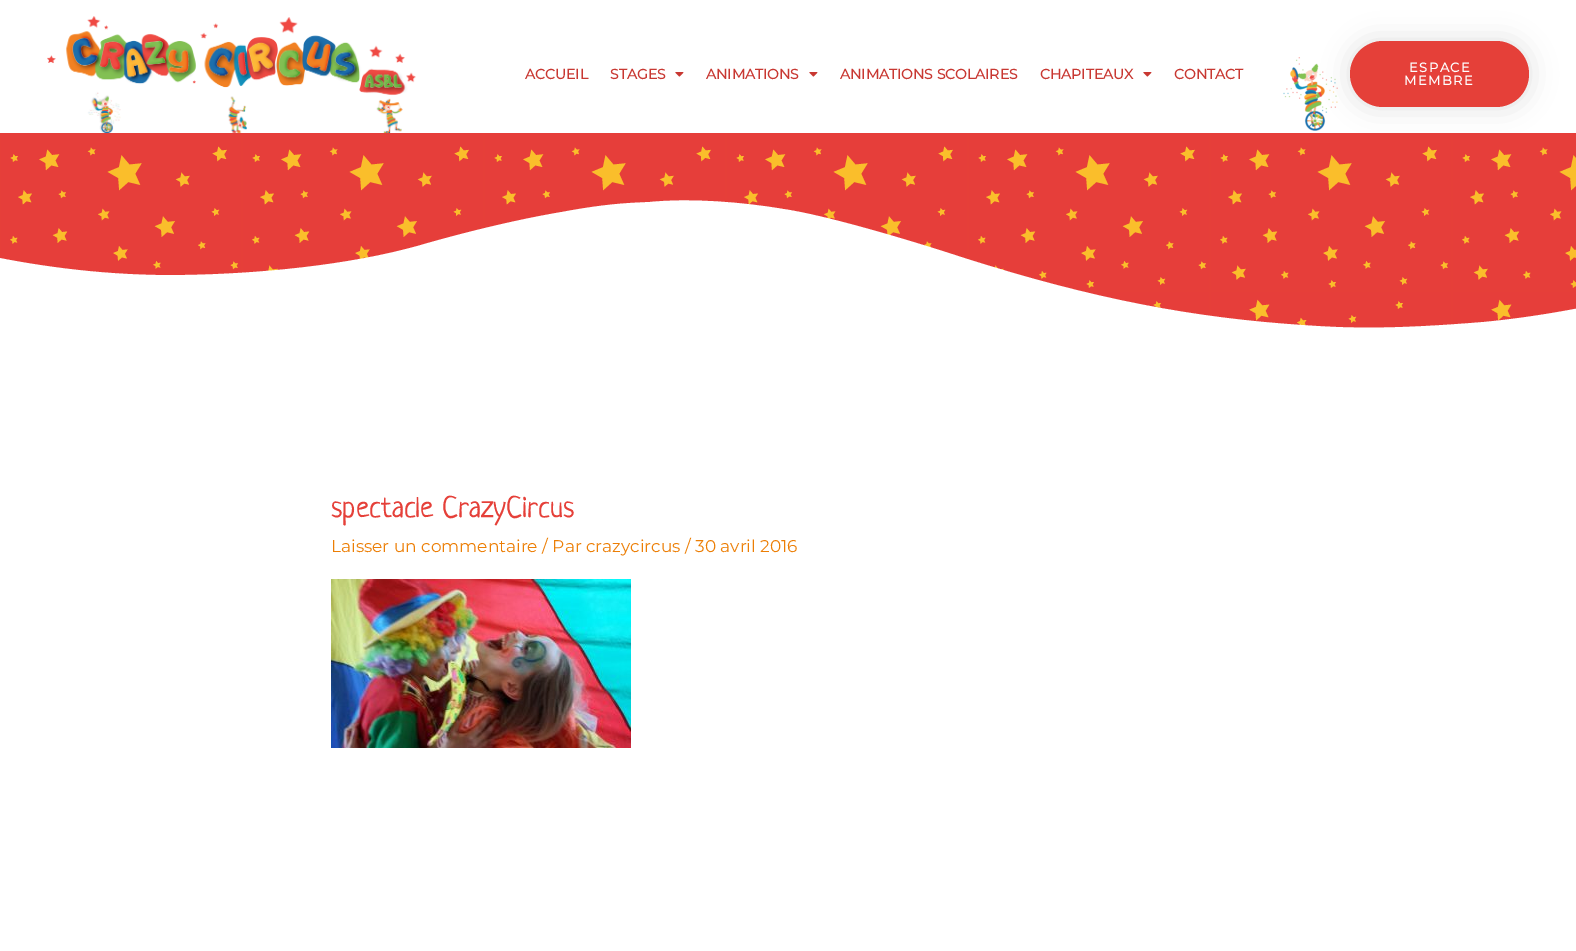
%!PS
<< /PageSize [1576 951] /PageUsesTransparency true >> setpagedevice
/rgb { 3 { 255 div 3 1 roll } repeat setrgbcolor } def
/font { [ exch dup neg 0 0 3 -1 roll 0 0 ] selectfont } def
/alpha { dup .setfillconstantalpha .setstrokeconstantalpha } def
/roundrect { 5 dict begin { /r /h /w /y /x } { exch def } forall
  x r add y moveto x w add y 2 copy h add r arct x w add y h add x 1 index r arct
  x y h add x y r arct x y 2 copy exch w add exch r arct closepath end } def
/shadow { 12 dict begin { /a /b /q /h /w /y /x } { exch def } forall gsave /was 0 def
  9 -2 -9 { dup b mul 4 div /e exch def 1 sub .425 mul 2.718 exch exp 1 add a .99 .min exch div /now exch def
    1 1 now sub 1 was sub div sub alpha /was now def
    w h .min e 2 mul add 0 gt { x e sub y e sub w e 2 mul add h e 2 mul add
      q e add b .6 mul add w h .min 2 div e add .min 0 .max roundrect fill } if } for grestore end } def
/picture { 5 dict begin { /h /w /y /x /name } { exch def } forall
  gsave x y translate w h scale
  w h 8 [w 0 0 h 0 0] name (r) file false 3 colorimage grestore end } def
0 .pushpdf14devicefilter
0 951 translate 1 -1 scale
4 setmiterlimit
255 255 255 rgb
0 0 1576 951 rectfill
(img/1.rgb) 47 16 369 117 picture
(img/2.rgb) 1283 57 55 74 picture
(img/3.rgb) 675 72 9 5 picture
(img/3.rgb) 809 72 9 5 picture
(img/3.rgb) 1143 72 9 5 picture
(img/4.rgb) 0 133 1576 195 picture
0 0 0 rgb
1350 41 179 66 33 13.5 0.12 shadow
229 64 57 rgb
1350 41 179 66 33 roundrect fill
255 255 255 rgb
1301 325 moveto 1196 318 1095 300 961 257 curveto 909 240 825 215 783 209 curveto 742 202 690 198 650 202 curveto 632 203 610 203 562 212 curveto 514 220 459 234 421 245 curveto 348 266 254 274 185 275 curveto 32 278 -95 234 -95 234 curveto -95 334 lineto 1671 334 lineto 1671 287 lineto 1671 287 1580 313 1484 322 curveto 1388 330 1343 328 1301 325 curveto closepath fill
(img/5.rgb) 331 579 300 169 picture
/Montserrat-Bold 14 font
200 56 50 rgb
[
  [(ACCUEIL) 525 79]
  [(STAGES) 610 79]
  [(ANIMATIONS) 706 79]
  [(ANIMATIONS SCOLAIRES) 840 79]
  [(CHAPITEAUX) 1040 79]
  [(CONTACT) 1174 79]
] { aload pop moveto show } forall
/Montserrat-Bold 13 font
254 254 254 rgb
1409 72 moveto 1.5 0 (ESPACE) ashow
1404 85 moveto 1.5 0 (MEMBRE) ashow
/Neucha-Regular 30 font
229 64 57 rgb
331 517 moveto (spectacle CrazyCircus) show
/Montserrat-Regular 17 font
236 126 5 rgb
331 552 moveto (Laisser un commentaire / Par crazycircus / 30 avril 2016) show
.poppdf14devicefilter showpage
